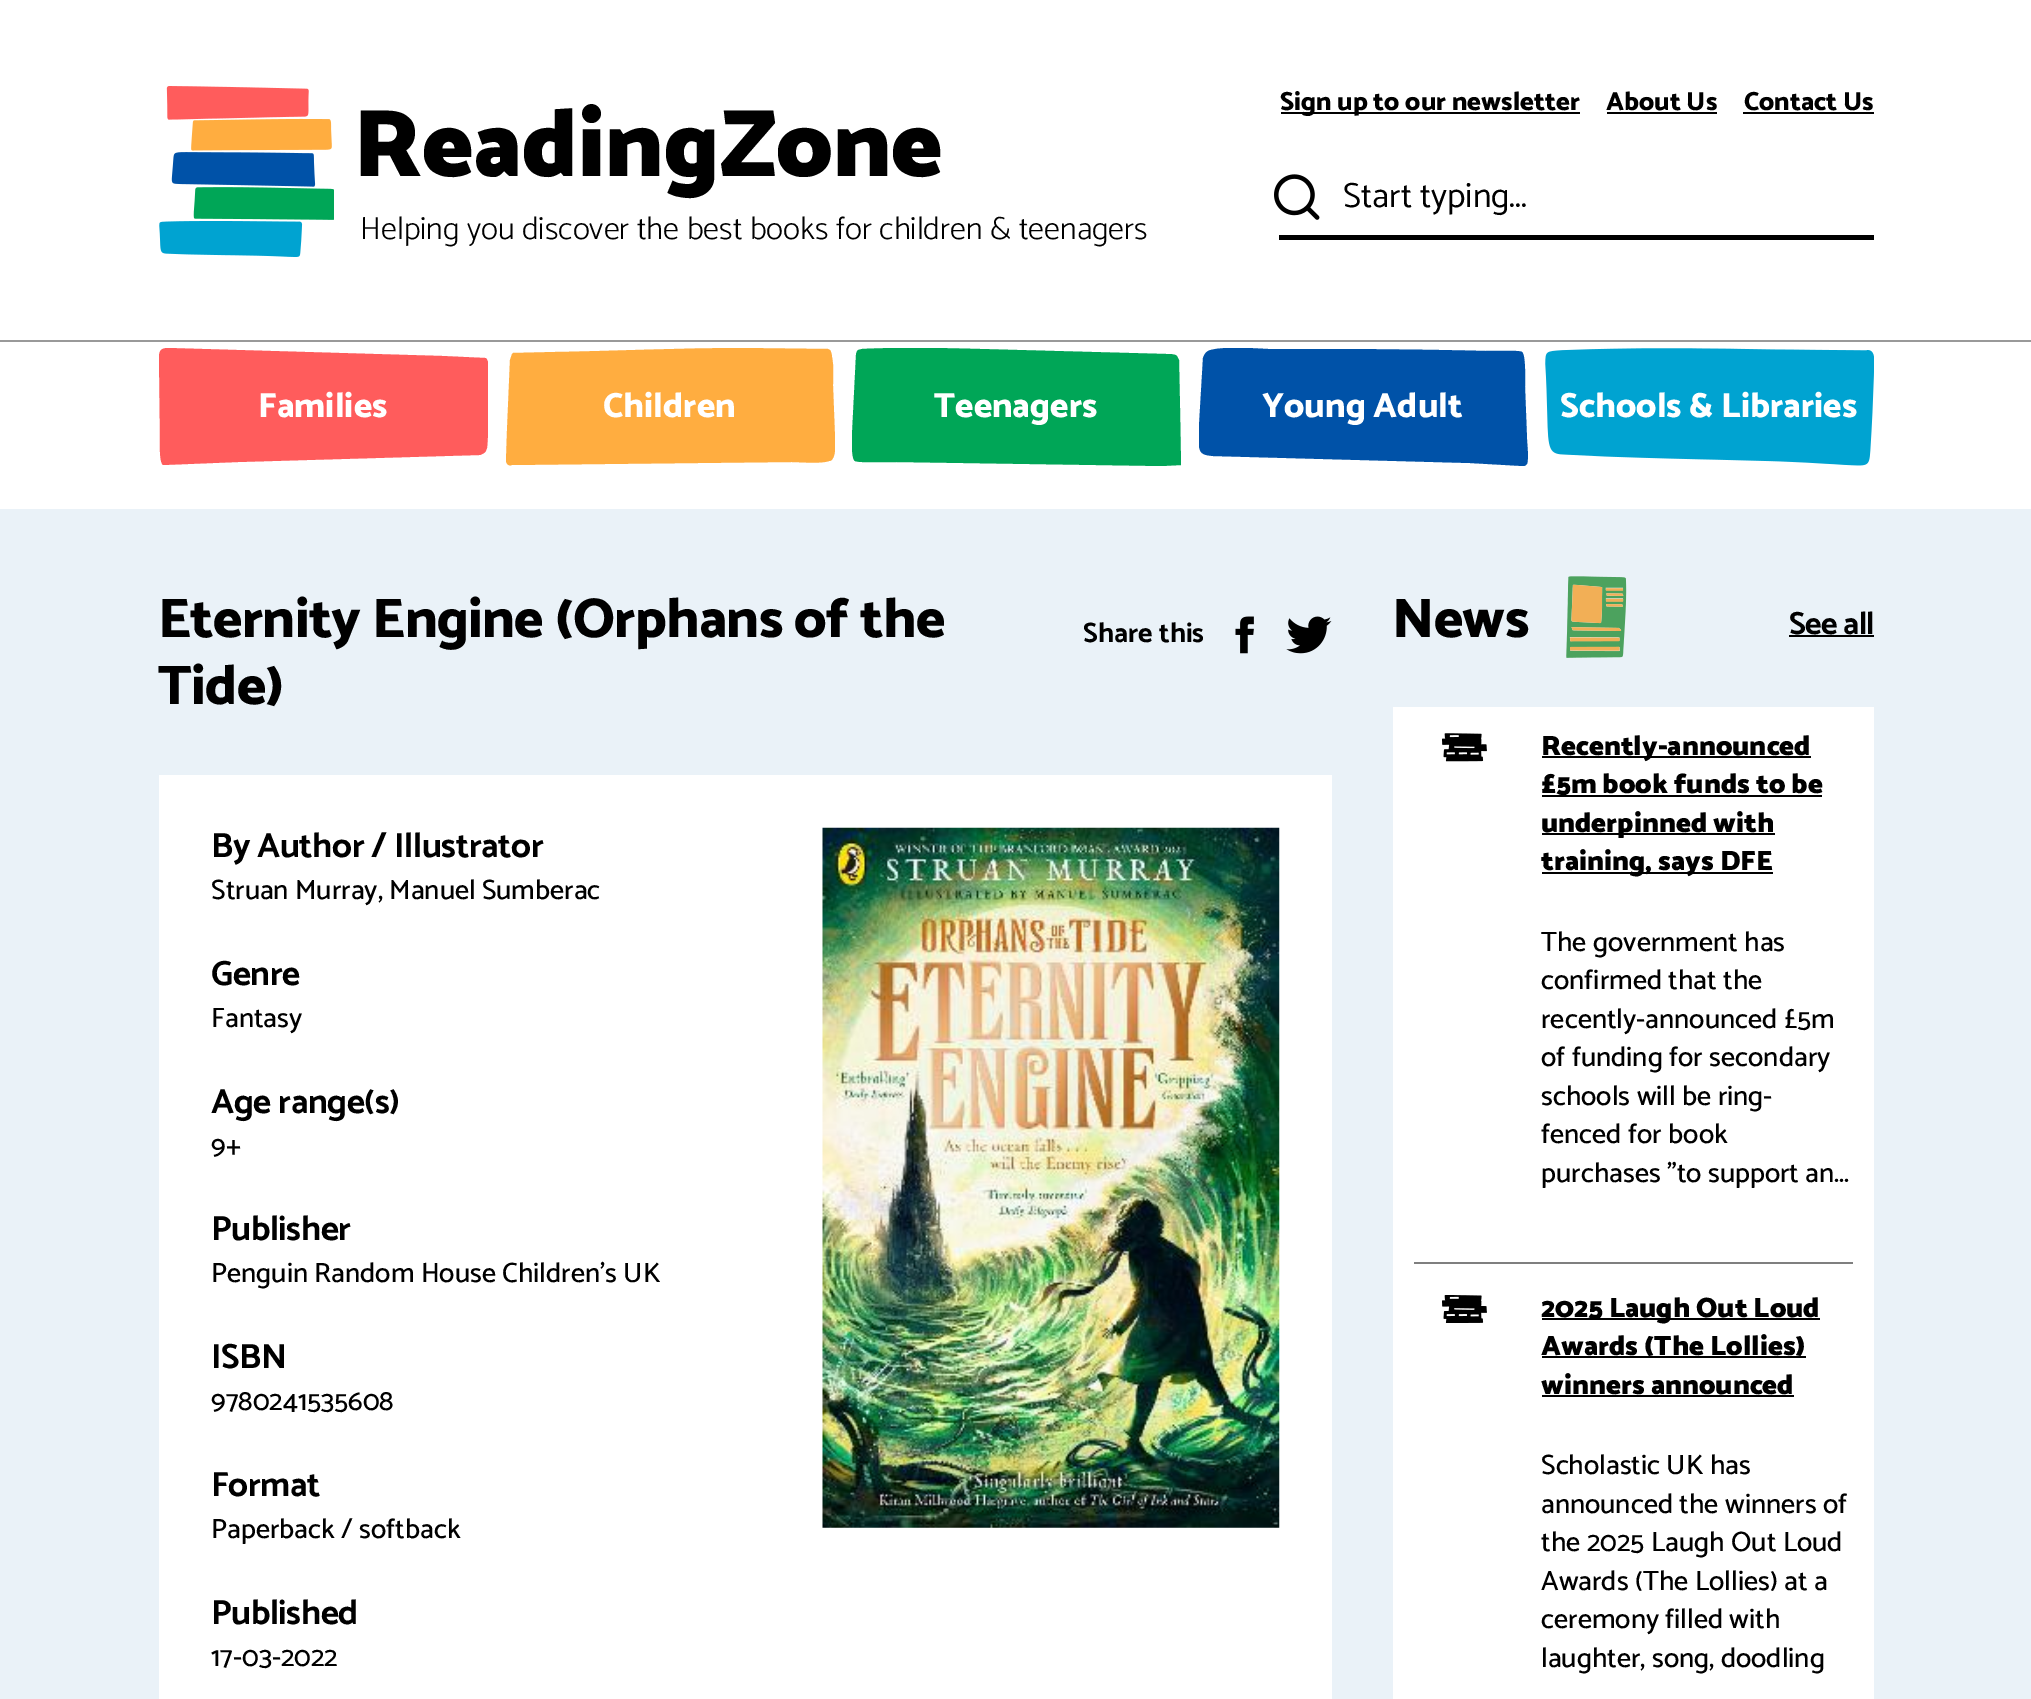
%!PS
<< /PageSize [2031 1699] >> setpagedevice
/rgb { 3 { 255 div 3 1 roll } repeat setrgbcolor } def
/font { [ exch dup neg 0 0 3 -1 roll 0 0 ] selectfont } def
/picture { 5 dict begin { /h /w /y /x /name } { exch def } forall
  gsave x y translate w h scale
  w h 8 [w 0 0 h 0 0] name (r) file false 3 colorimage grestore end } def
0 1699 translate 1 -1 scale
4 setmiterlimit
234 242 248 rgb
0 0 2031 1699 rectfill
[
  [0 0 2031 509 255 255 255]
  [1281 112 299 2 0 0 0]
  [1607 112 110 2 0 0 0]
  [1743 112 131 2 0 0 0]
] { aload pop rgb rectfill } forall
(img/1.rgb) 1274 174 46 46 picture
1279 235 595 5 rectfill
gsave
159 348 329 118 rectclip
255 92 92 rgb
159 357 moveto 159 350 162 348 168 348 curveto 442 356 lineto 485 358 lineto 487 358 487 360 488 362 curveto 489 366 488 370 488 374 curveto 488 392 lineto 488 423 lineto 488 431 488 439 487 448 curveto 486 450 486 452 484 453 curveto 482 454 481 455 479 455 curveto 238 462 lineto 163 465 lineto 159 462 160 442 160 439 curveto 159 357 lineto fill
grestore
gsave
506 348 329 118 rectclip
255 173 64 rgb
506 461 moveto 507 431 lineto 510 360 lineto 512 354 lineto 513 353 lineto 555 352 lineto 617 351 680 348 742 348 curveto 828 349 lineto 830 350 lineto 831 351 832 355 832 357 curveto 834 367 833 377 833 386 curveto 835 438 lineto 835 443 836 453 833 458 curveto 832 460 831 461 829 461 curveto 821 464 800 462 791 462 curveto 512 465 lineto 512 465 507 467 506 461 curveto fill
grestore
gsave
852 348 329 118 rectclip
0 166 87 rgb
852 435 moveto 856 355 lineto 856 353 857 351 858 350 curveto 862 349 lineto 901 347 941 348 980 349 curveto 1166 354 lineto 1170 354 1175 354 1177 356 curveto 1179 360 lineto 1180 408 lineto 1181 465 lineto 1162 466 lineto 897 462 lineto 892 462 858 463 855 461 curveto 851 459 852 438 852 435 curveto fill
grestore
gsave
1199 348 329 118 rectclip
0 82 168 rgb
1523 466 moveto 1470 463 lineto 1213 456 lineto 1205 455 1200 455 1199 446 curveto 1199 426 lineto 1203 358 lineto 1204 355 1205 353 1208 351 curveto 1216 347 1240 348 1248 348 curveto 1268 349 lineto 1340 349 1413 349 1485 351 curveto 1491 351 1520 350 1522 352 curveto 1526 355 1525 382 1525 387 curveto 1527 439 lineto 1527 444 1529 458 1527 464 curveto 1526 465 1525 466 1523 466 curveto fill
grestore
(img/2.rgb) 1545 348 329 118 picture
(img/3.rgb) 159 86 175 171 picture
153 153 153 rgb
0 340 2031 2 rectfill
(img/4.rgb) 1235 616 19 38 picture
(img/5.rgb) 1286 616 46 38 picture
255 255 255 rgb
159 775 1173 924 rectfill
(img/6.rgb) 822 827 458 701 picture
(img/7.rgb) 1566 576 61 82 picture
(img/8.rgb) 1570 584 54 67 picture
0 0 0 rgb
1789 635 85 2 rectfill
255 255 255 rgb
1393 707 481 992 rectfill
(img/9.rgb) 1442 733 45 29 picture
[
  [1542 756 269 2 0 0 0]
  [1542 795 280 2 0 0 0]
  [1542 833 233 2 0 0 0]
  [1542 872 231 2 0 0 0]
  [1414 1262 439 2 127 127 127]
] { aload pop rgb rectfill } forall
(img/10.rgb) 1442 1295 45 28 picture
[
  [1542 1318 278 2 0 0 0]
  [1542 1356 264 2 0 0 0]
  [1542 1395 252 2 0 0 0]
] { aload pop rgb rectfill } forall
/Catamaran-ExtraBold 26.25 font
[
  [(Sign up to our newsletter) 1280 110]
  [(About Us) 1606 110]
  [(Contact Us) 1744 110]
] { aload pop moveto show } forall
/Catamaran-Regular 35 font
1343 207 moveto (Start typing...) show
/Catamaran-ExtraBold 35 font
255 255 255 rgb
[
  [(Families) 258 417]
  [(Children) 603 417]
  [(Teenagers) 934 417]
  [(Young Adult) 1262 417]
  [(Schools & Libraries) 1560 417]
] { aload pop moveto show } forall
/Catamaran-Black 96.25 font
0 0 0 rgb
353 176 moveto (ReadingZone) show
/Catamaran-Light 32.1 font
360 239 moveto (Helping you discover the best books for children & teenagers) show
/Catamaran-ExtraBold 56 font
158 637 moveto -0.7 0 (Eternity Engine \(Orphans of the) ashow
158 704 moveto -0.7 0 (Tide\)) ashow
/Catamaran-Bold 28 font
1083 642 moveto (Share this) show
/Catamaran-Bold 35 font
211 857 moveto -0.4 0 (By Author / Illustrator) ashow
/Catamaran-Medium 28 font
211 899 moveto (Struan Murray, Manuel Sumberac) show
/Catamaran-Bold 35 font
211 985 moveto -0.4 0 (Genre) ashow
/Catamaran-Medium 28 font
211 1027 moveto (Fantasy) show
/Catamaran-Bold 35 font
211 1113 moveto -0.4 0 (Age range\(s\)) ashow
/Catamaran-Medium 28 font
211 1155 moveto (9+) show
/Catamaran-Bold 35 font
211 1240 moveto -0.4 0 (Publisher) ashow
/Catamaran-Medium 28 font
211 1282 moveto (Penguin Random House Children's UK) show
/Catamaran-Bold 35 font
211 1368 moveto -0.4 0 (ISBN) ashow
/Catamaran-Medium 28 font
211 1410 moveto (9780241535608) show
/Catamaran-Bold 35 font
211 1496 moveto -0.4 0 (Format) ashow
/Catamaran-Medium 28 font
211 1538 moveto (Paperback / softback) show
/Catamaran-Bold 35 font
211 1624 moveto -0.4 0 (Published) ashow
/Catamaran-Medium 28 font
211 1666 moveto (17-03-2022) show
/Catamaran-ExtraBold 56 font
1392 637 moveto -0.7 0 (News) ashow
/Catamaran-Bold 32 font
1789 634 moveto -0.7 0 (See all) ashow
/Catamaran-Black 28 font
[
  [(Recently-announced) 1541 755]
  [(£5m book funds to be) 1541 793]
  [(underpinned with) 1541 832]
  [(training, says DFE) 1541 870]
] { aload pop moveto show } forall
/Catamaran-Medium 28 font
[
  [(The government has) 1541 951]
  [(confirmed that the) 1541 989]
  [(recently-announced £5m) 1541 1028]
  [(of funding for secondary) 1541 1066]
  [(schools will be ring-) 1541 1105]
  [(fenced for book) 1541 1143]
  [(purchases "to support an...) 1541 1182]
] { aload pop moveto show } forall
/Catamaran-Black 28 font
[
  [(2025 Laugh Out Loud) 1541 1317]
  [(Awards \(The Lollies\)) 1541 1355]
  [(winners announced) 1541 1394]
] { aload pop moveto show } forall
/Catamaran-Medium 28 font
[
  [(Scholastic UK has) 1541 1474]
  [(announced the winners of) 1541 1513]
  [(the 2025 Laugh Out Loud) 1541 1551]
  [(Awards \(The Lollies\) at a) 1541 1590]
  [(ceremony filled with) 1541 1628]
  [(laughter, song, doodling) 1541 1667]
] { aload pop moveto show } forall
showpage
